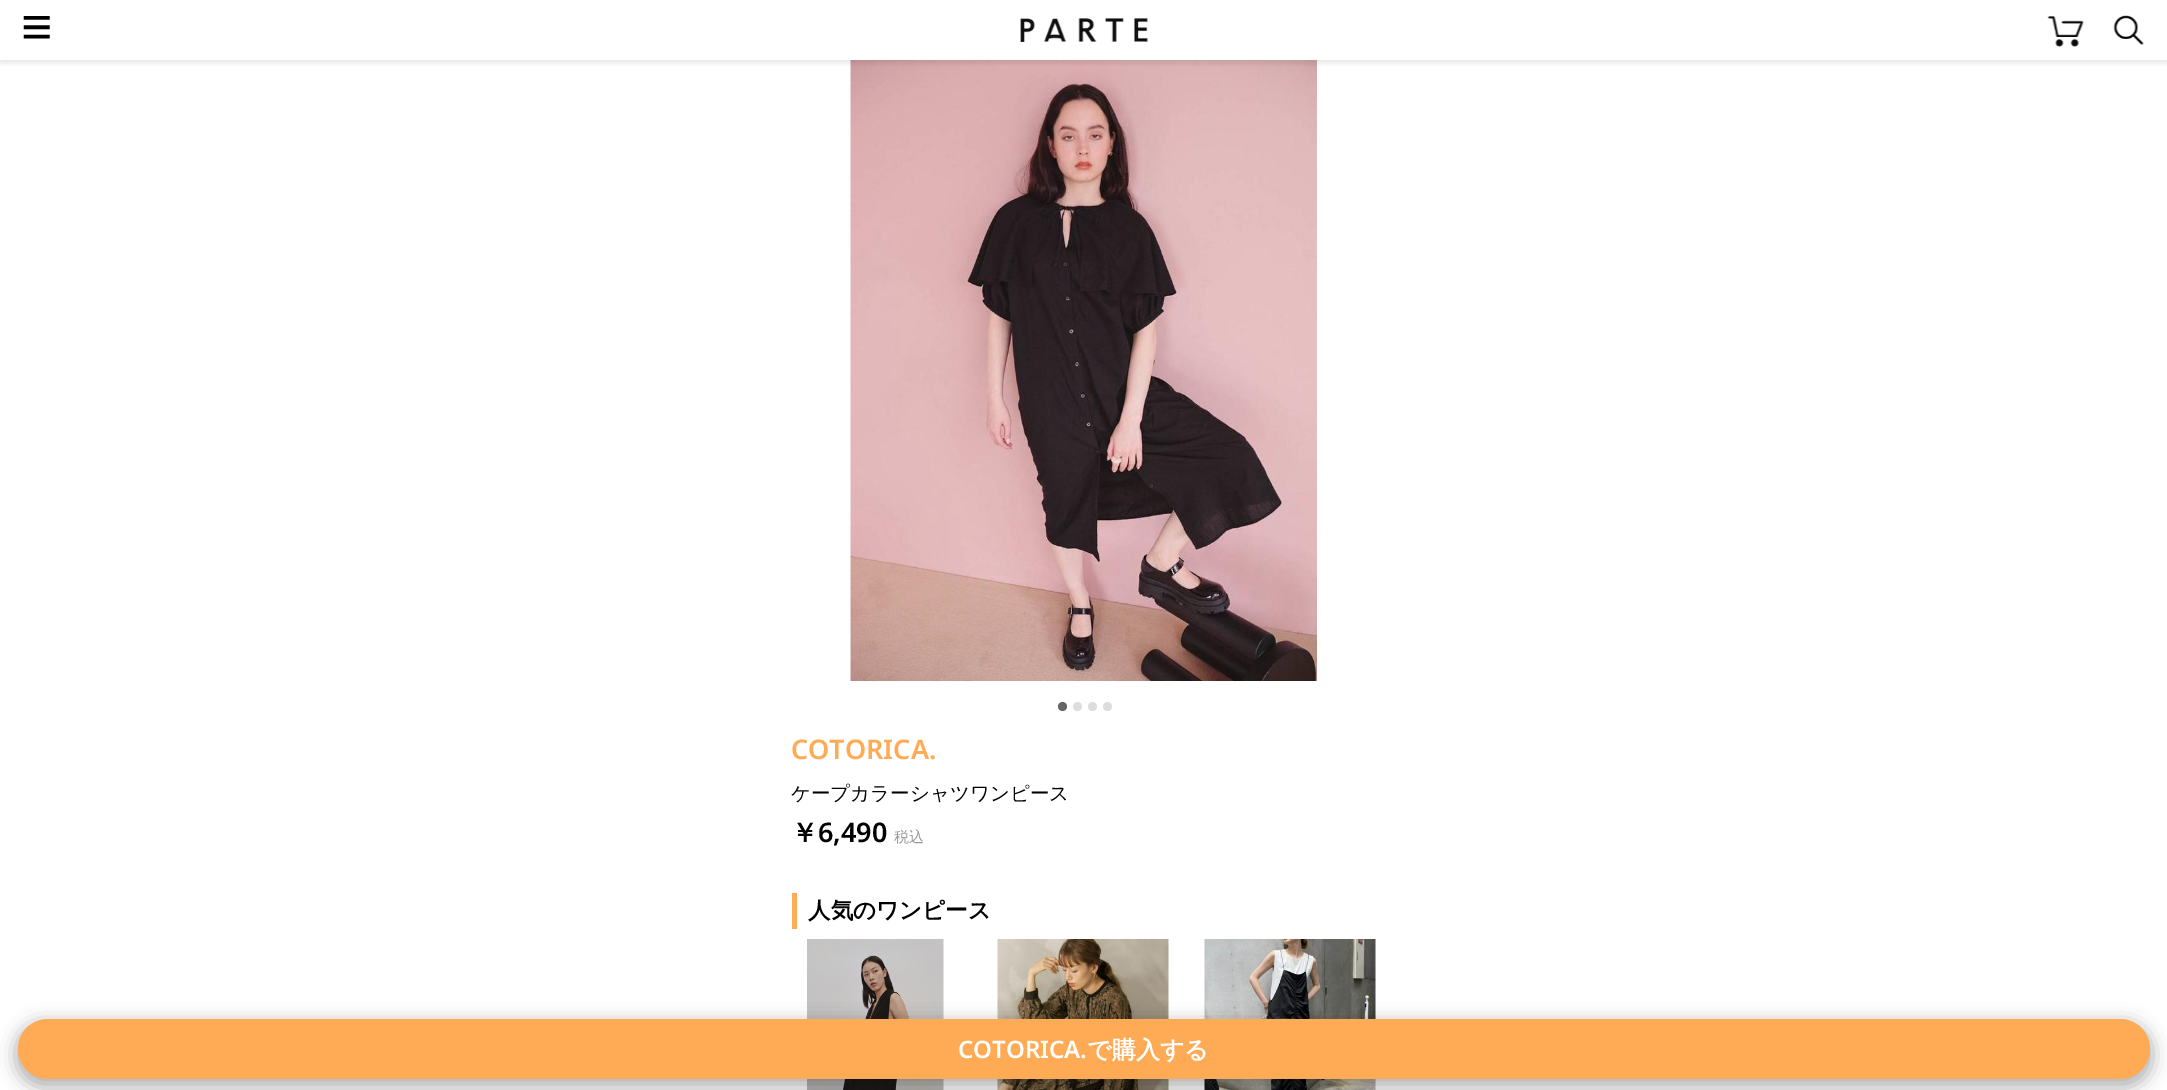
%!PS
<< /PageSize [2167 1090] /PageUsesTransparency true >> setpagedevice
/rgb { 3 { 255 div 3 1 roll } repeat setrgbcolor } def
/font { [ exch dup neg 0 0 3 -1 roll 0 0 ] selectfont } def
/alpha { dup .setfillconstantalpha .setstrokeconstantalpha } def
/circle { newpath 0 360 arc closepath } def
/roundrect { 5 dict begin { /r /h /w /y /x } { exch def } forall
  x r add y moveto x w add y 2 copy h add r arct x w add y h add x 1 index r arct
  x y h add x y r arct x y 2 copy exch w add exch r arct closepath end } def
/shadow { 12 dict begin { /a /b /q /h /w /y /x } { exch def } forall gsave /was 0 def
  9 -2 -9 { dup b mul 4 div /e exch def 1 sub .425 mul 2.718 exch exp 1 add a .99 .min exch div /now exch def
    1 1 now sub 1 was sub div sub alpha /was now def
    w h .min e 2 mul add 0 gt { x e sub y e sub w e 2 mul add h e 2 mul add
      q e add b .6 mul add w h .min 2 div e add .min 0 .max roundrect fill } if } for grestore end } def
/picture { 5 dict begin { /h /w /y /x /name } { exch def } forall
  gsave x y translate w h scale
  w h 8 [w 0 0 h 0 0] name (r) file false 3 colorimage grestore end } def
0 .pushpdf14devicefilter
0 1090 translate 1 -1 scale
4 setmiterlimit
255 255 255 rgb
0 0 2167 1090 rectfill
(img/4.rgb) 850 60 467 621 picture
gsave
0 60 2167 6 rectclip
0 0 0 rgb
0 3 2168 60 0 3 0.1 shadow
grestore
(img/1.rgb) 1020 18 128 24 picture
(img/2.rgb) 2047 16 37 31 picture
(img/3.rgb) 2113 15 31 30 picture
102 102 102 rgb
1062.5 706.5 4.5 circle fill
221 221 221 rgb
1077.5 706.5 4.5 circle fill
1092.5 706.5 4.5 circle fill
1107.5 706.5 4.5 circle fill
(img/5.rgb) 807 939 137 151 picture
(img/6.rgb) 997 939 172 151 picture
(img/7.rgb) 1204 939 172 151 picture
0 0 0 rgb
15 1022 2138 66 33 9 0.3 shadow
255 170 85 rgb
18 1019 2132 60 30 roundrect fill
792 893 5 36 rectfill
/LiberationSans-Regular 54 font
0 0 0 rgb
21 45 moveto (≡) show
/NotoSans-SemiBold 27 font
255 170 85 rgb
791 759 moveto (COTORICA.) show
/WenQuanYiZenHei-Medium 19.5 font
0 0 0 rgb
791 800 moveto (ケープカラーシャツワンピース) show
/WenQuanYiZenHei-Bold 27 font
791 842 moveto (￥) show
/NotoSans-SemiBold 27 font
818 842 moveto (6,490) show
/WenQuanYiZenHei-Medium 15 font
153 153 153 rgb
894 842 moveto (税込) show
/NotoSans-SemiBold 24 font
255 255 255 rgb
958 1058 moveto (COTORICA.) show
/WenQuanYiZenHei-Bold 24 font
1087 1058 moveto (で購入する) show
/WenQuanYiZenHei-Bold 22.5 font
0 0 0 rgb
808 918 moveto (人気のワンピース) show
.poppdf14devicefilter showpage
